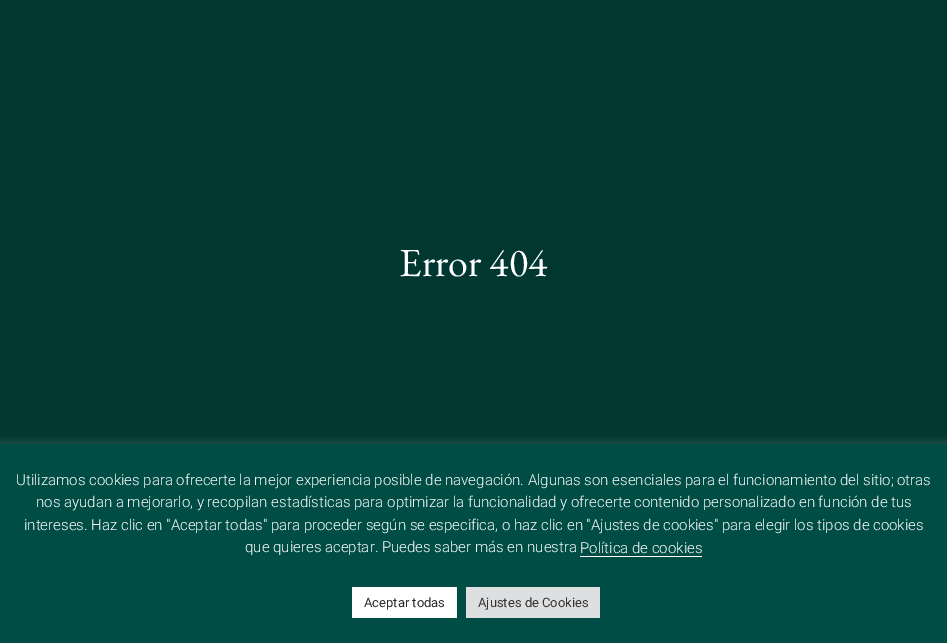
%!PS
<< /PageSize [947 643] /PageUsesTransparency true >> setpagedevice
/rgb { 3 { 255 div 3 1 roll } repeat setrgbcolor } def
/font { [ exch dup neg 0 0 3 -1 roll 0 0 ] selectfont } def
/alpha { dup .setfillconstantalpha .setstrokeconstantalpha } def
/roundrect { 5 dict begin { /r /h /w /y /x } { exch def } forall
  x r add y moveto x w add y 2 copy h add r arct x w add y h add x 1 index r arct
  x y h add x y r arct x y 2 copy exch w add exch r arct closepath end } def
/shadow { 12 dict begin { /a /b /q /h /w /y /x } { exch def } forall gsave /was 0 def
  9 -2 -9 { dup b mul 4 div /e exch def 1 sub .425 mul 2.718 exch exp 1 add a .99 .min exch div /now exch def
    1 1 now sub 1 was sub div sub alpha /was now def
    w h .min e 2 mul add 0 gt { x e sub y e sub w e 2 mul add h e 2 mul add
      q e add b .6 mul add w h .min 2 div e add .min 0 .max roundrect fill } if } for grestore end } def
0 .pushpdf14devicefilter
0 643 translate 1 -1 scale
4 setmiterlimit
0 55 49 rgb
0 0 947 643 rectfill
172 171 171 rgb
0 443 947 199 0 5 0.3 shadow
[
  [0 444 947 199 0 77 69]
  [580 556 122 1 255 255 255]
  [352 587 105 31 255 255 255]
  [466 587 134 31 222 223 224]
] { aload pop rgb rectfill } forall
/EBGaramond-Regular 40 font
255 255 255 rgb
399 276 moveto (Error 404) show
/Roboto-Light 15 font
[
  [(Utilizamos cookies para ofrecerte la mejor experiencia posible de navegación. Algunas son esenciales para el funcionamiento del sitio; otras) 16 485]
  [(nos ayudan a mejorarlo, y recopilan estadísticas para optimizar la funcionalidad y ofrecerte contenido personalizado en función de tus) 36 507]
  [(intereses. Haz clic en "Aceptar todas" para proceder según se especifica, o haz clic en "Ajustes de cookies" para elegir los tipos de cookies) 24 530]
  [(que quieres aceptar. Puedes saber más en nuestra) 245 552]
  [(Política de cookies) 580 553]
] { aload pop moveto show } forall
/Roboto-Regular 13 font
45 45 45 rgb
364 607 moveto (Aceptar todas) show
51 51 51 rgb
478 607 moveto (Ajustes de Cookies) show
.poppdf14devicefilter showpage
